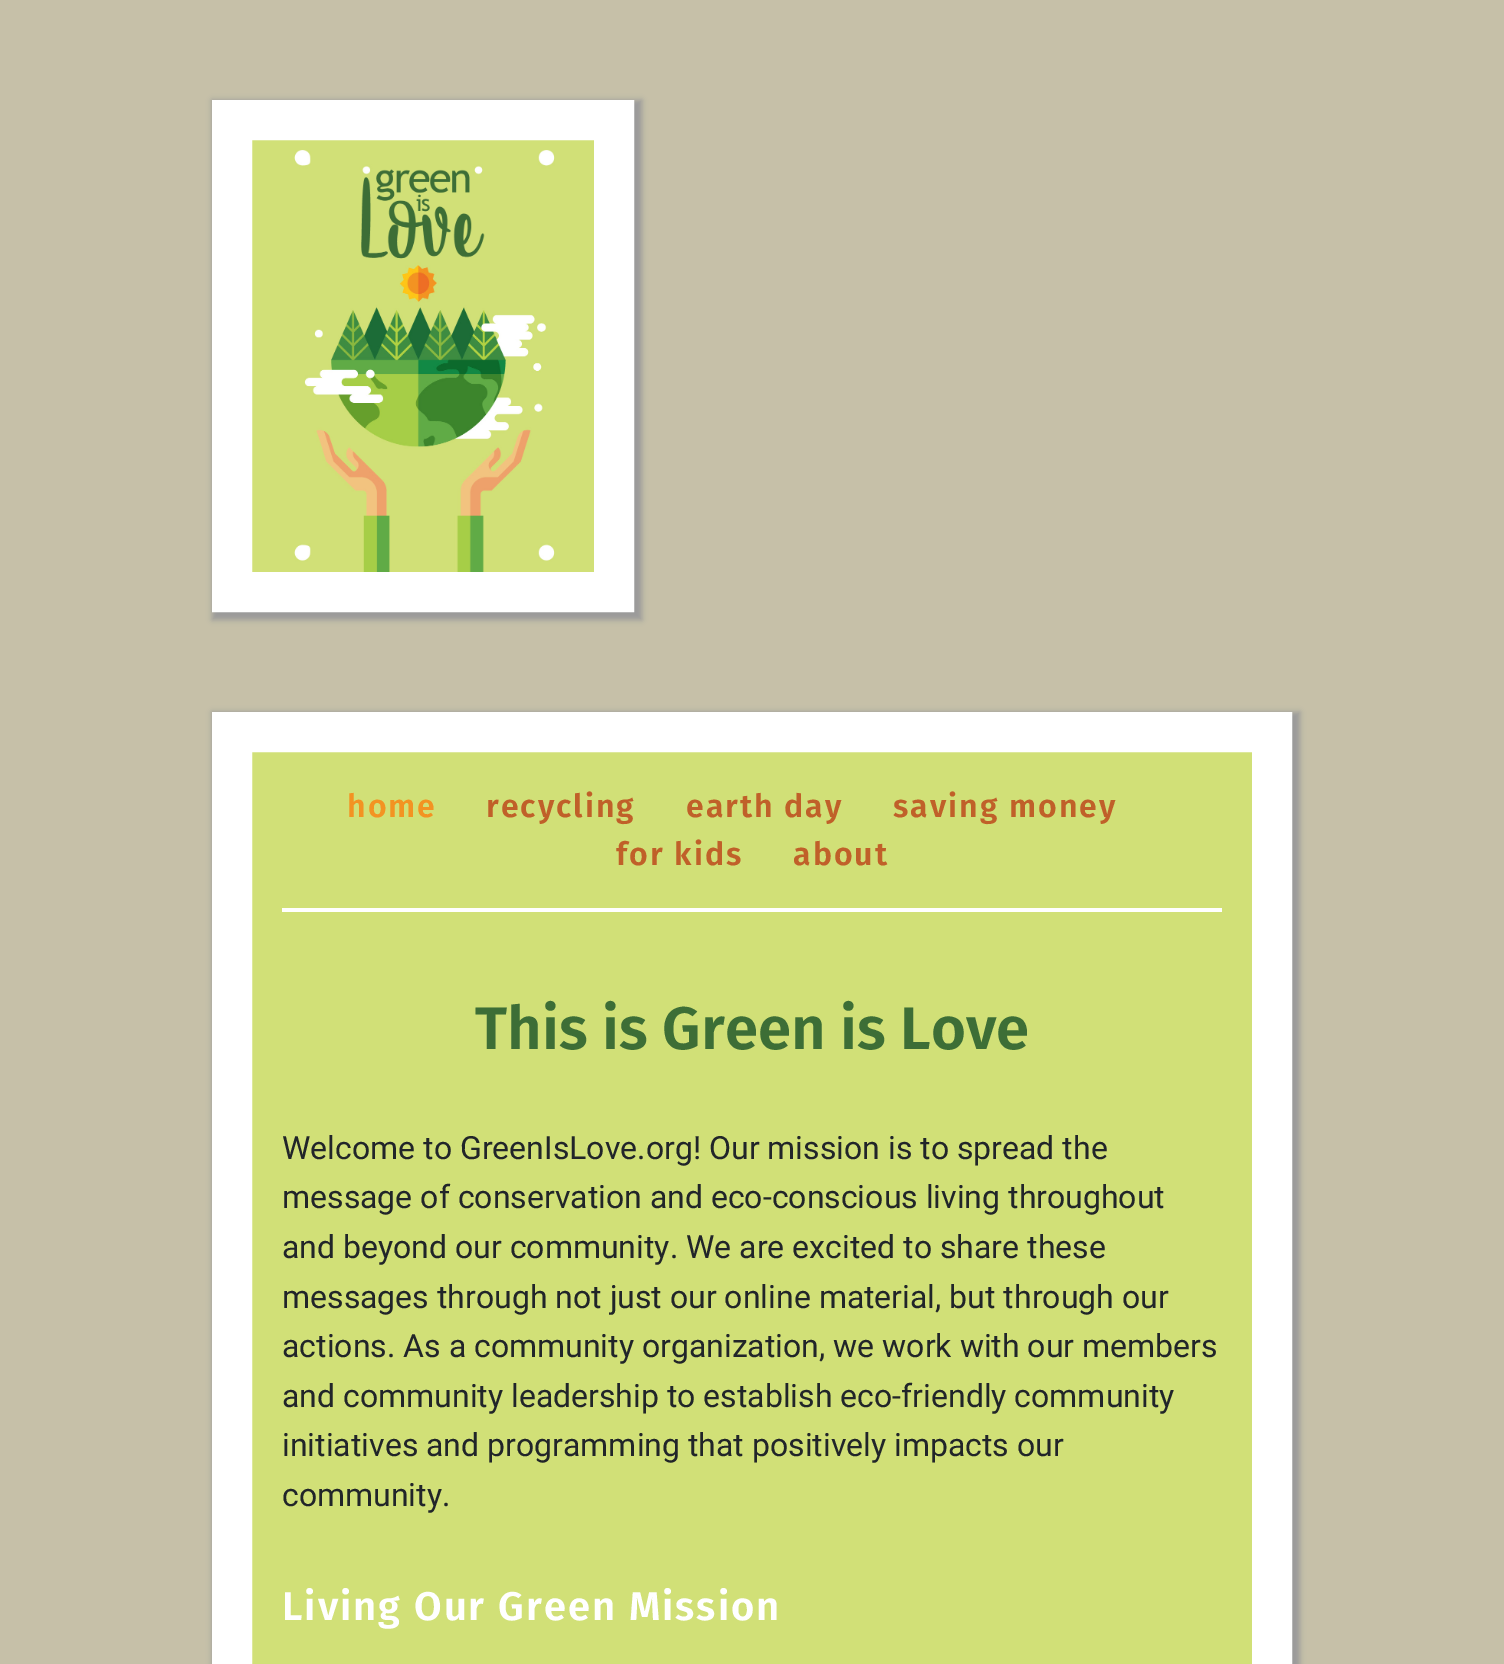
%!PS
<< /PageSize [1504 1664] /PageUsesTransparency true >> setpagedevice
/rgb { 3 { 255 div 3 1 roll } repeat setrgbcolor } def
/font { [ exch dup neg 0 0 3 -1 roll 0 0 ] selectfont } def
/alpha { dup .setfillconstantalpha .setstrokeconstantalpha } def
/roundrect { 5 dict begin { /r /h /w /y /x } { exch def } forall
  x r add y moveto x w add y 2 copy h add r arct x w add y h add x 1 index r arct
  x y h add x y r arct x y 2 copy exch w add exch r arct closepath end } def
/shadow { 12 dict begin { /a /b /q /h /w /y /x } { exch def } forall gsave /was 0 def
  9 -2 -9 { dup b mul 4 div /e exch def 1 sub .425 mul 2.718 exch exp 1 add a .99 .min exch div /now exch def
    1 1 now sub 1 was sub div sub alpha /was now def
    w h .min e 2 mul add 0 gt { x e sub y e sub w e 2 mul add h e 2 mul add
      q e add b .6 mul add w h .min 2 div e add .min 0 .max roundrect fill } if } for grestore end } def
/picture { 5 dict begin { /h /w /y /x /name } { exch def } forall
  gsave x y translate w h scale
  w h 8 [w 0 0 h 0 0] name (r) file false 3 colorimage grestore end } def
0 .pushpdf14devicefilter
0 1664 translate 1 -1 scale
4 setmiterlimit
198 192 168 rgb
0 0 1504 1664 rectfill
153 153 153 rgb
212 100 430 520 0 3 1 shadow
209 224 119 rgb
232 120 moveto 614 120 lineto 614 592 lineto 232 592 lineto closepath gsave fill grestore
255 255 255 rgb
40 setlinewidth
stroke
(img/1.rgb) 294 150 261 422 picture
153 153 153 rgb
212 712 1088 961 0 3 1 shadow
209 224 119 rgb
232 732 moveto 1272 732 lineto 1272 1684 lineto 232 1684 lineto closepath gsave fill grestore
255 255 255 rgb
stroke
282 908 940 4 rectfill
/FiraSans-SemiBold 32 font
243 147 34 rgb
347 817 moveto 2 0 (home) ashow
192 96 41 rgb
486 817 moveto 2 0 (recycling) ashow
686 817 moveto 2 0 (earth day) ashow
893 817 moveto 2 0 (saving money) ashow
616 865 moveto 2 0 (for kids) ashow
793 865 moveto 2 0 (about) ashow
/FiraSans-SemiBold 60 font
61 110 54 rgb
475 1049 moveto (This is Green is Love) show
/Roboto-Regular 32 font
33 37 41 rgb
[
  [(Welcome to GreenIsLove.org! Our mission is to spread the) 282 1159]
  [(message of conservation and eco-conscious living throughout) 282 1208]
  [(and beyond our community. We are excited to share these) 282 1258]
  [(messages through not just our online material, but through our) 282 1308]
  [(actions. As a community organization, we work with our members) 282 1357]
  [(and community leadership to establish eco-friendly community) 282 1407]
  [(initiatives and programming that positively impacts our) 282 1456]
  [(community.) 282 1506]
] { aload pop moveto show } forall
/FiraSans-SemiBold 40 font
255 255 255 rgb
282 1620 moveto 2 0 (Living Our Green Mission) ashow
.poppdf14devicefilter showpage
